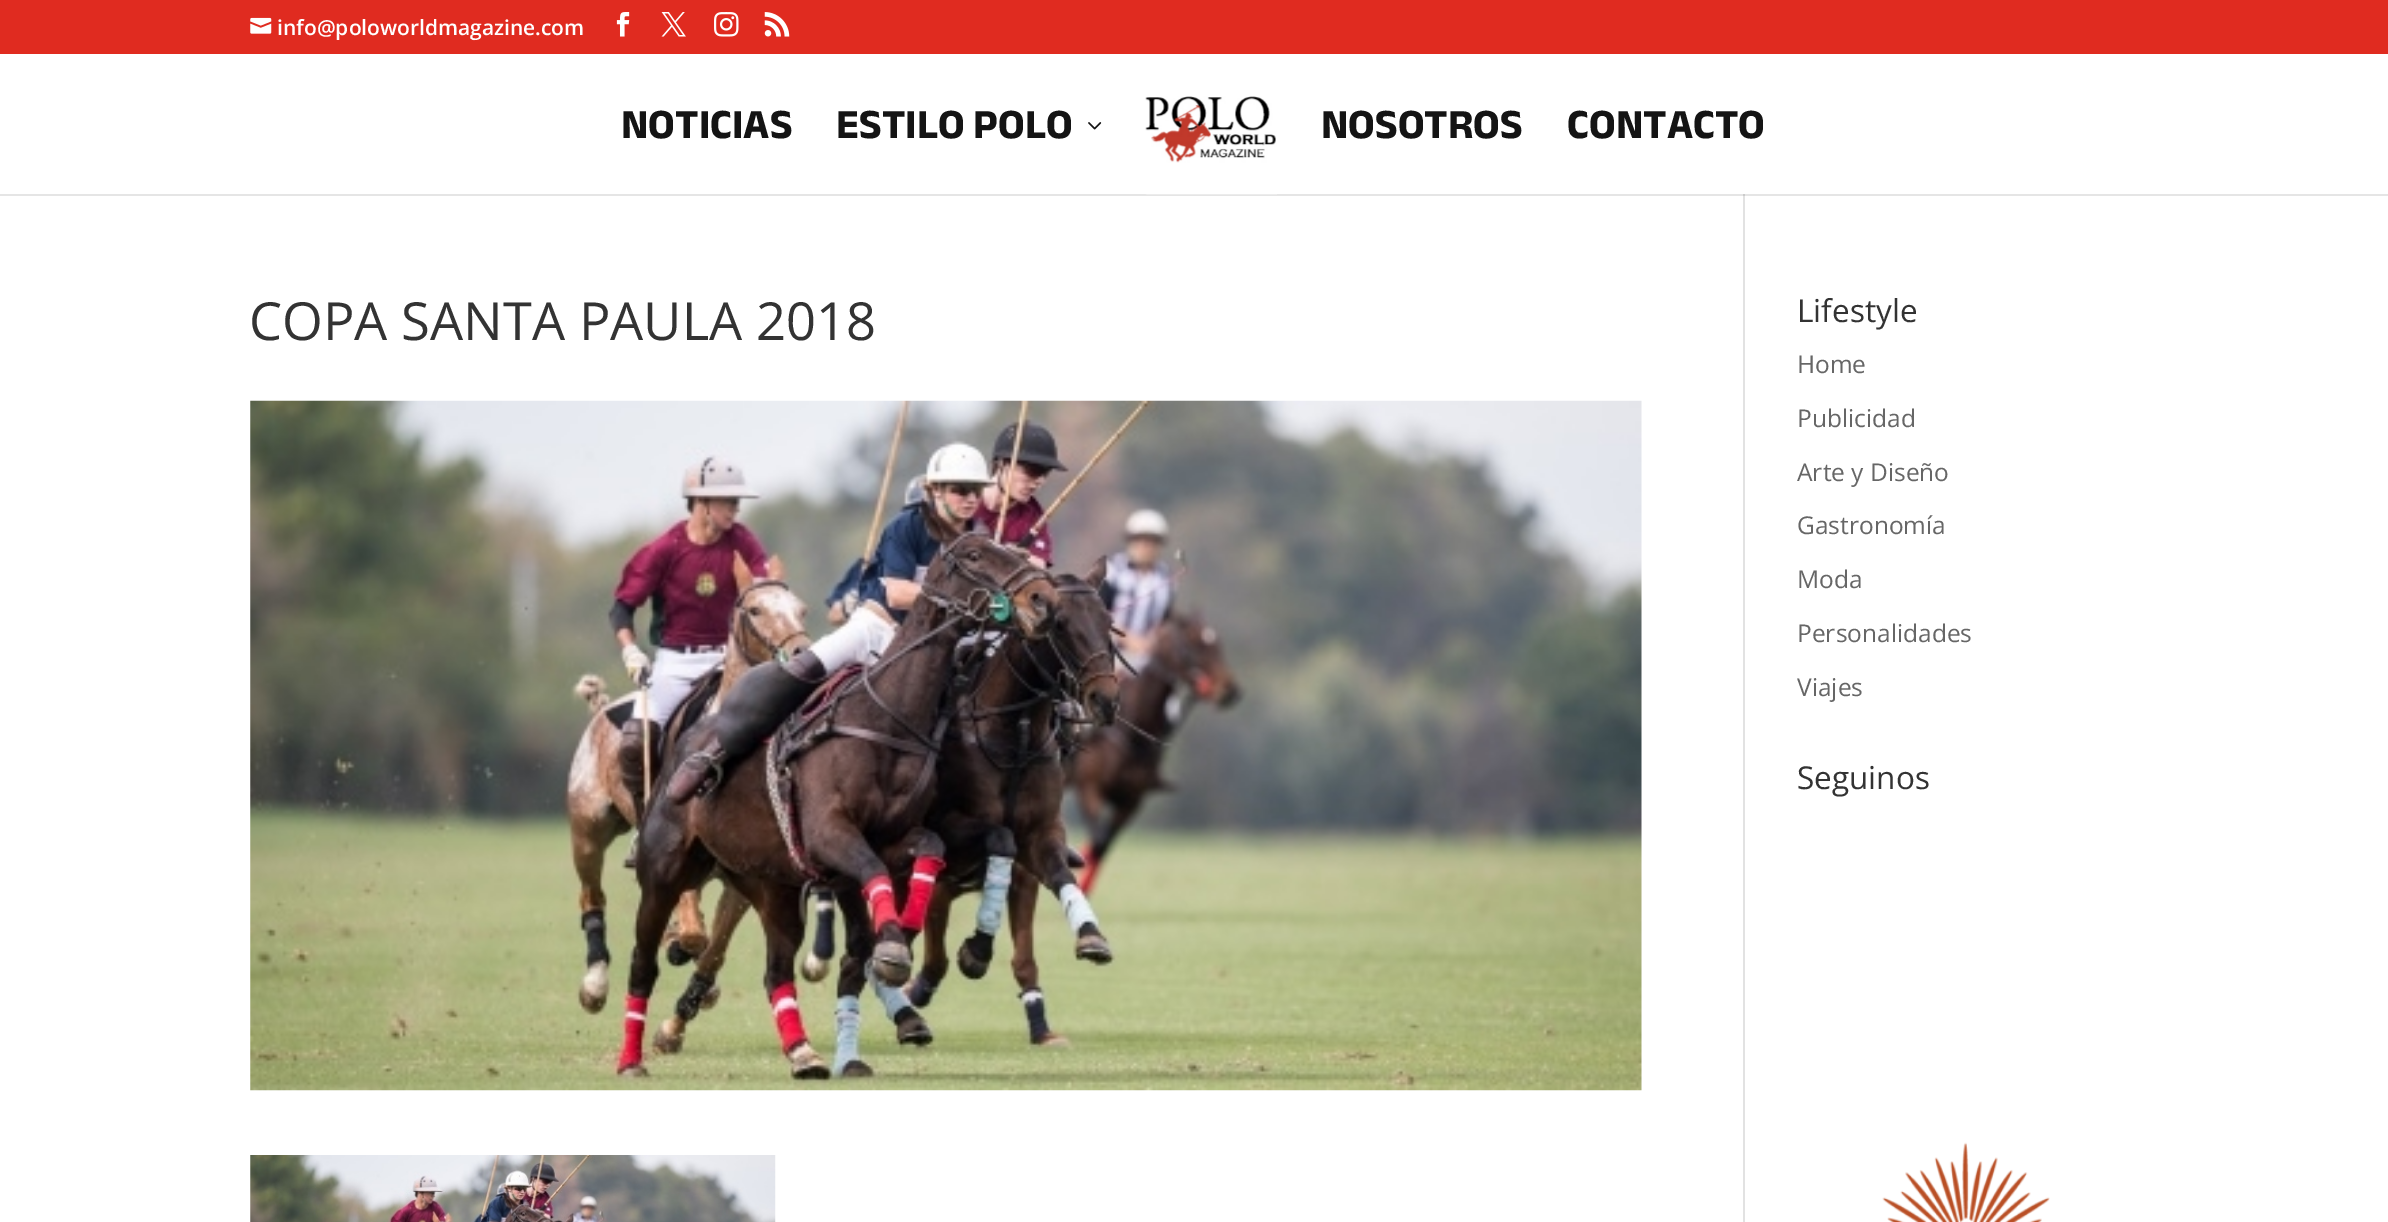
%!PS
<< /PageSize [2388 1222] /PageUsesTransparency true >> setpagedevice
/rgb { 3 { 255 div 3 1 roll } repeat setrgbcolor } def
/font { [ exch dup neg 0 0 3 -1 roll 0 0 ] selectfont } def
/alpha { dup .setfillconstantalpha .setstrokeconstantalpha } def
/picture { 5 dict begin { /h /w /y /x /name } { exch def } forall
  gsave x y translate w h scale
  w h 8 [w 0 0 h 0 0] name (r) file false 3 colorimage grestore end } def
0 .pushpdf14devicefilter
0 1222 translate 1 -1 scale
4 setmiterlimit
255 255 255 rgb
0 0 2388 1222 rectfill
224 43 32 rgb
0 0 2388 54 rectfill
(img/1.rgb) 250 17 22 17 picture
(img/2.rgb) 616 12 14 25 picture
(img/3.rgb) 661 12 25 25 picture
(img/4.rgb) 714 12 25 25 picture
(img/5.rgb) 764 12 26 25 picture
226 226 226 rgb
1743 193 2 1029 rectfill
0.1 alpha
0 0 0 rgb
0 194 moveto 0 196 lineto 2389 196 lineto 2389 56 lineto 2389 194 lineto closepath fill
1 alpha
255 255 255 rgb
1743 193 2 1 rectfill
(img/6.rgb) 1088 122 14 8 picture
(img/7.rgb) 1145 96 132 99 picture
(img/8.rgb) 250 400 1392 691 picture
(img/9.rgb) 250 1155 526 67 picture
(img/10.rgb) 1882 1142 168 80 picture
/OpenSans-SemiBold 21 font
277 35 moveto (info@poloworldmagazine.com) show
/AnekLatin-Bold 42 font
20 20 20 rgb
[
  [(NOTICIAS) 621 138]
  [(ESTILO POLO) 836 138]
  [(NOSOTROS) 1321 138]
  [(CONTACTO) 1567 138]
] { aload pop moveto show } forall
/OpenSans-Regular 52.5 font
51 51 51 rgb
249 340 moveto (COPA SANTA PAULA 2018) show
/OpenSans-Regular 31.5 font
1797 322 moveto (Lifestyle) show
/OpenSans-Regular 24.5 font
102 102 102 rgb
[
  [(Home) 1797 373]
  [(Publicidad) 1797 427]
  [(Arte y Diseño) 1797 481]
  [(Gastronomía) 1797 534]
  [(Moda) 1797 588]
  [(Personalidades) 1797 642]
  [(Viajes) 1797 696]
] { aload pop moveto show } forall
/OpenSans-Regular 31.5 font
51 51 51 rgb
1797 789 moveto (Seguinos) show
.poppdf14devicefilter showpage
